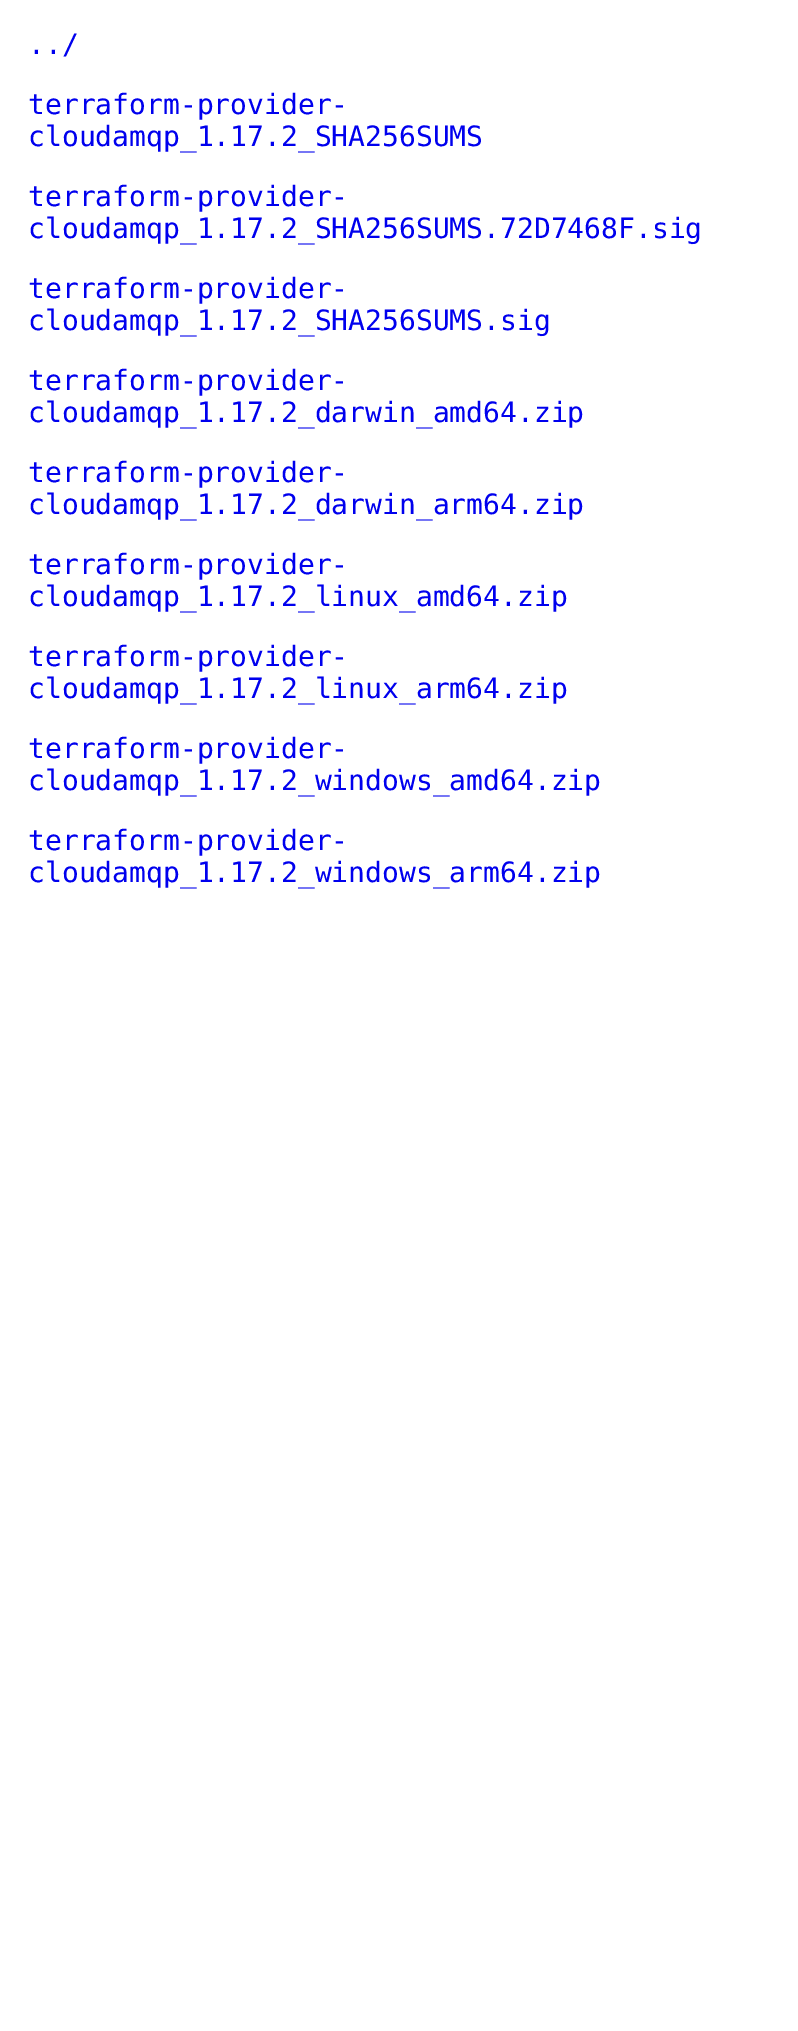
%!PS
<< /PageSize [798 2031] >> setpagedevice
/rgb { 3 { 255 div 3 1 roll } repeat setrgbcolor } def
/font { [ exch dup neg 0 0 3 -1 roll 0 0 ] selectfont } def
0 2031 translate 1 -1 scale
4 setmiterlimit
255 255 255 rgb
0 0 798 2031 rectfill
/DejaVuSansMono-Regular 28 font
0 0 238 rgb
[
  [(../) 28 54]
  [(terraform-provider-) 28 114]
  [(cloudamqp_1.17.2_SHA256SUMS) 28 146]
  [(terraform-provider-) 28 206]
  [(cloudamqp_1.17.2_SHA256SUMS.72D7468F.sig) 28 238]
  [(terraform-provider-) 28 298]
  [(cloudamqp_1.17.2_SHA256SUMS.sig) 28 330]
  [(terraform-provider-) 28 390]
  [(cloudamqp_1.17.2_darwin_amd64.zip) 28 422]
  [(terraform-provider-) 28 482]
  [(cloudamqp_1.17.2_darwin_arm64.zip) 28 514]
  [(terraform-provider-) 28 574]
  [(cloudamqp_1.17.2_linux_amd64.zip) 28 606]
  [(terraform-provider-) 28 666]
  [(cloudamqp_1.17.2_linux_arm64.zip) 28 698]
  [(terraform-provider-) 28 758]
  [(cloudamqp_1.17.2_windows_amd64.zip) 28 790]
  [(terraform-provider-) 28 850]
  [(cloudamqp_1.17.2_windows_arm64.zip) 28 882]
] { aload pop moveto show } forall
showpage
